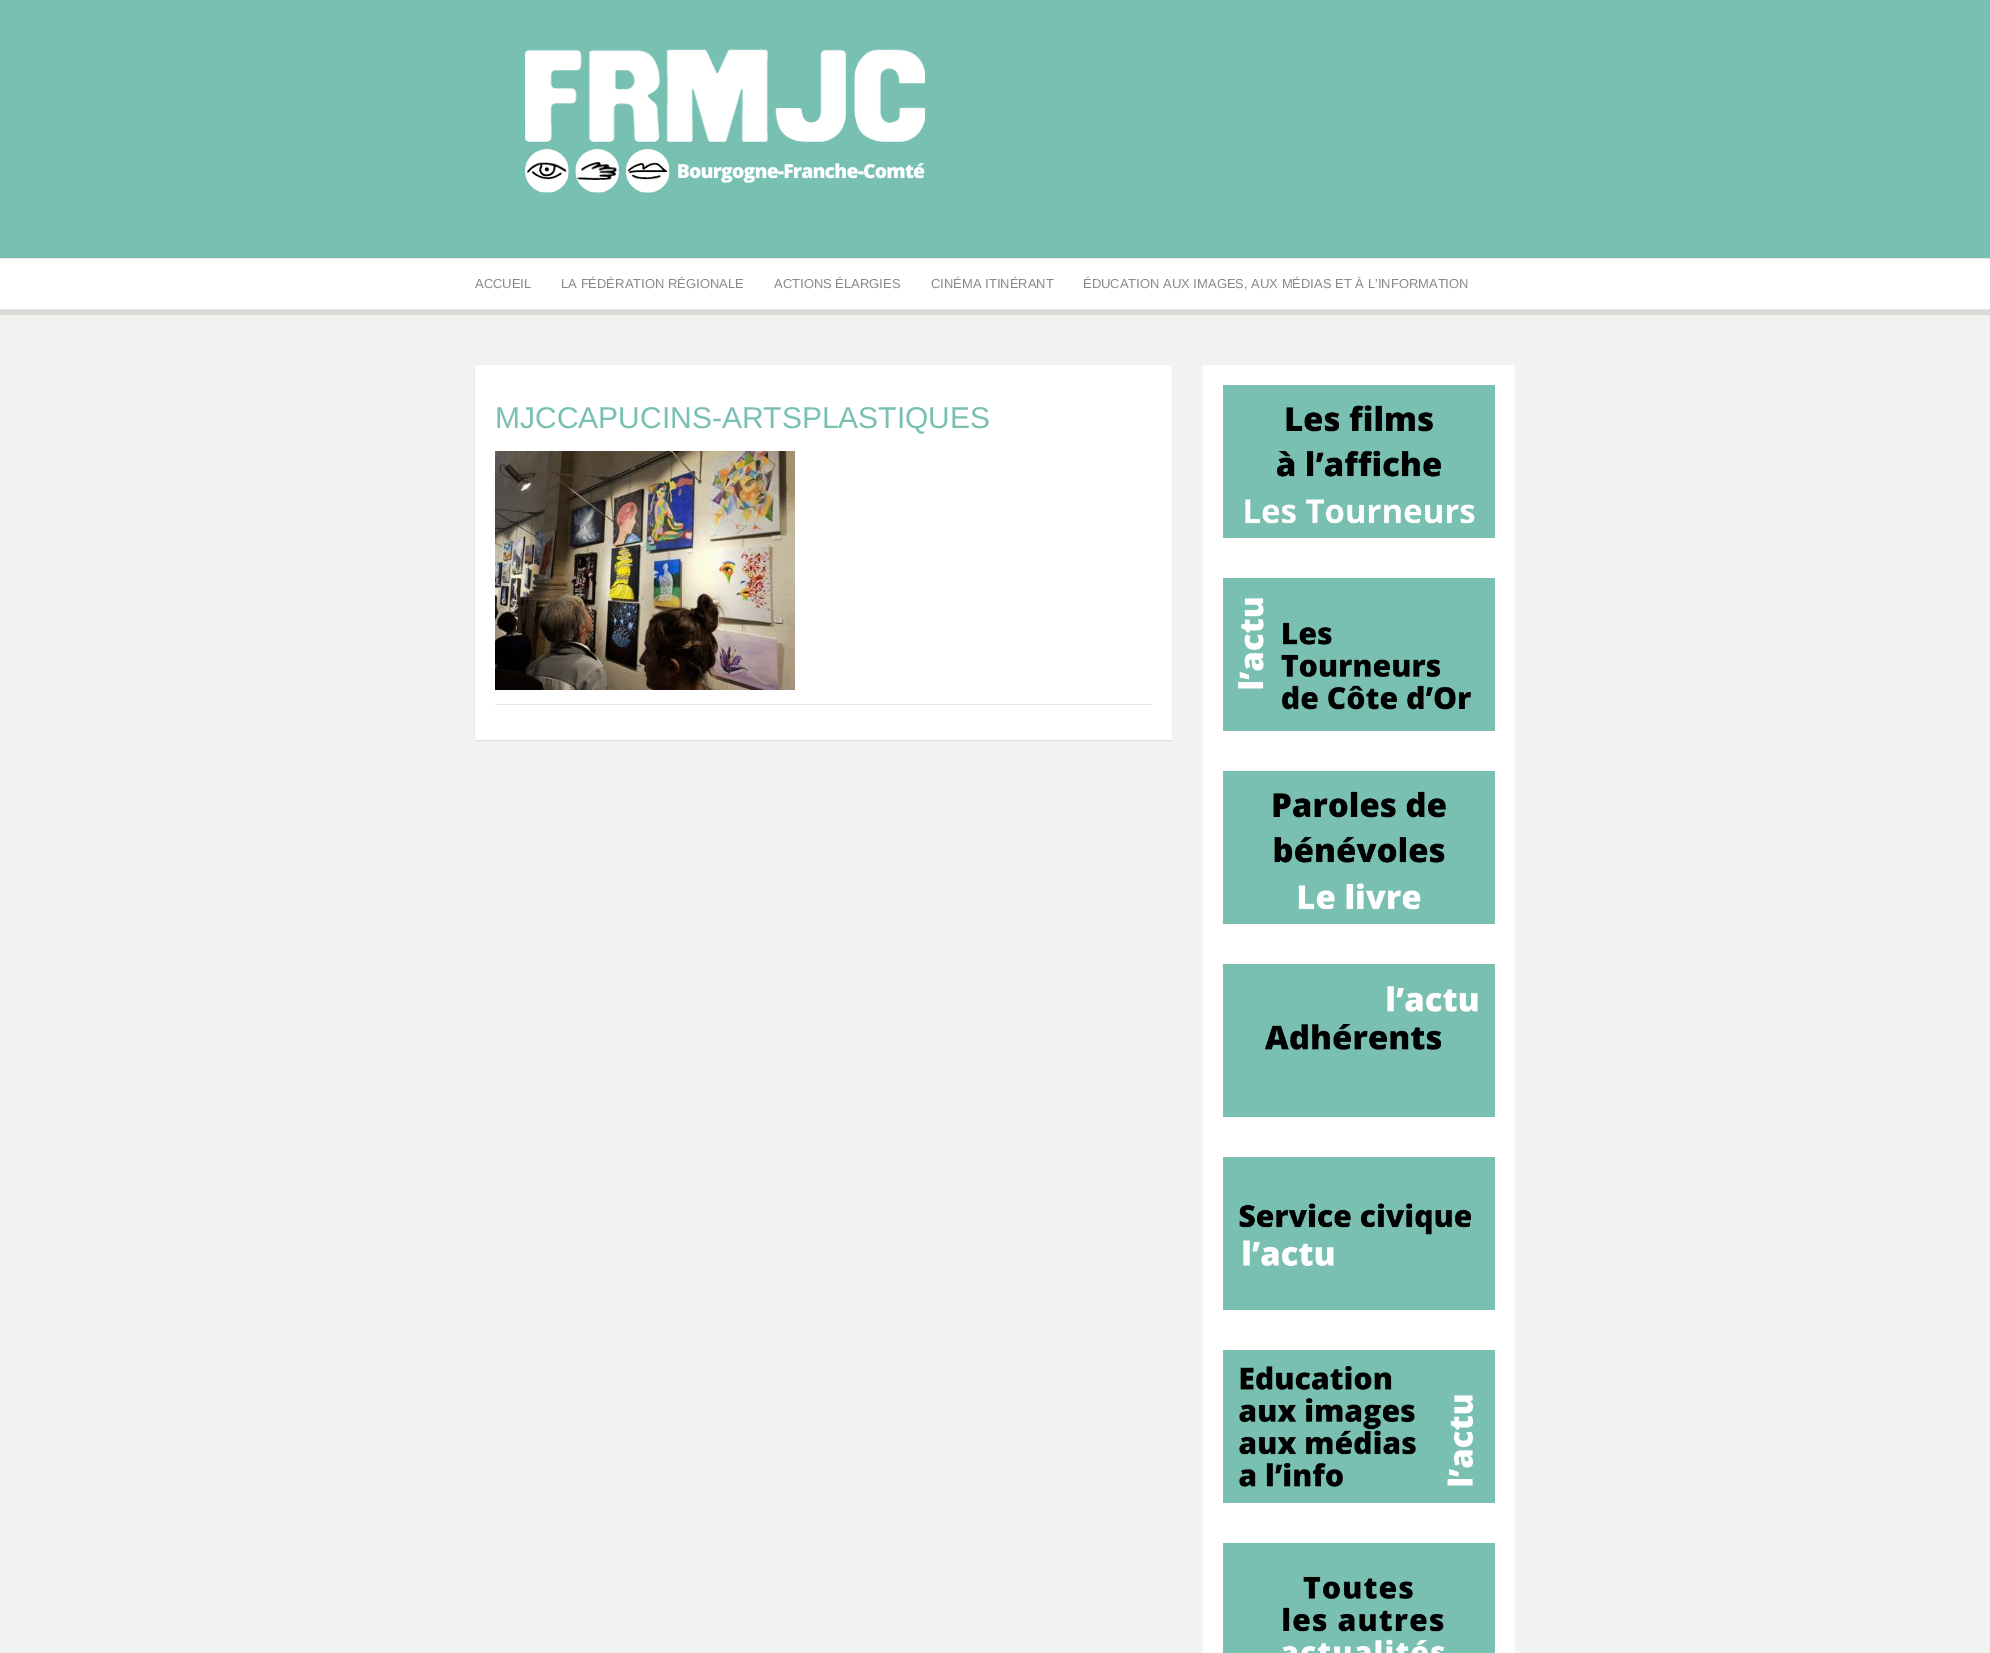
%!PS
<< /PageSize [1990 1653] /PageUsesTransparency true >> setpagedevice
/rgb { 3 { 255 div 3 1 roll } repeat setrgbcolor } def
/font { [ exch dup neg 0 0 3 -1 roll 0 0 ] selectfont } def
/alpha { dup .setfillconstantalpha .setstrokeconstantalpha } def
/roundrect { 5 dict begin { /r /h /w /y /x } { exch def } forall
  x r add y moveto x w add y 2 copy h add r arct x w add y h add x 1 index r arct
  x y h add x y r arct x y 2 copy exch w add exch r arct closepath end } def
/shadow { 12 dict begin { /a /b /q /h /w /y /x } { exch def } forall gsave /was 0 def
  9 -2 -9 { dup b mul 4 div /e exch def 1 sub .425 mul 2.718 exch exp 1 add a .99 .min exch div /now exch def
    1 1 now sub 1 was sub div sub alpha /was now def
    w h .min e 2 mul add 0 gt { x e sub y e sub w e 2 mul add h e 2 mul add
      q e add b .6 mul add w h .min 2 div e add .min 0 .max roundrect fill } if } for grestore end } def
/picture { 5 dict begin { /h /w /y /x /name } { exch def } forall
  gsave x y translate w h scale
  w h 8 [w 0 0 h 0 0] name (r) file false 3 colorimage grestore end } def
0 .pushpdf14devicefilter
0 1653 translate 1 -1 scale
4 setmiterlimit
255 255 255 rgb
0 0 1990 1653 rectfill
120 192 178 rgb
0 0 1990 258 rectfill
(img/1.rgb) 525 49 400 144 picture
[
  [0 258 1990 1 230 230 230]
  [0 309 1990 1 230 230 230]
  [0 315 1990 1338 242 242 240]
  [0 310 1990 5 218 219 212]
] { aload pop rgb rectfill } forall
0 0 0 rgb
475 366 697 375 0 0.5 0.08 shadow
255 255 255 rgb
475 365 697 375 rectfill
(img/2.rgb) 495 451 300 239 picture
230 230 230 rgb
495 704 657 1 rectfill
255 255 255 rgb
1203 365 312 1288 rectfill
(img/3.rgb) 1223 385 272 153 picture
(img/4.rgb) 1223 578 272 153 picture
(img/5.rgb) 1223 771 272 153 picture
(img/6.rgb) 1223 964 272 153 picture
(img/7.rgb) 1223 1157 272 153 picture
(img/8.rgb) 1223 1350 272 153 picture
(img/9.rgb) 1223 1543 272 110 picture
/LiberationSans-Regular 13 font
137 137 137 rgb
[
  [(ACCUEIL) 475 288]
  [(LA FÉDÉRATION RÉGIONALE) 561 288]
  [(ACTIONS ÉLARGIES) 774 288]
  [(CINÉMA ITINÉRANT) 931 288]
  [(ÉDUCATION AUX IMAGES, AUX MÉDIAS ET À L’INFORMATION) 1083 288]
] { aload pop moveto show } forall
/LiberationSans-Regular 30 font
121 192 179 rgb
495 428 moveto (MJCCAPUCINS-ARTSPLASTIQUES) show
.poppdf14devicefilter showpage
